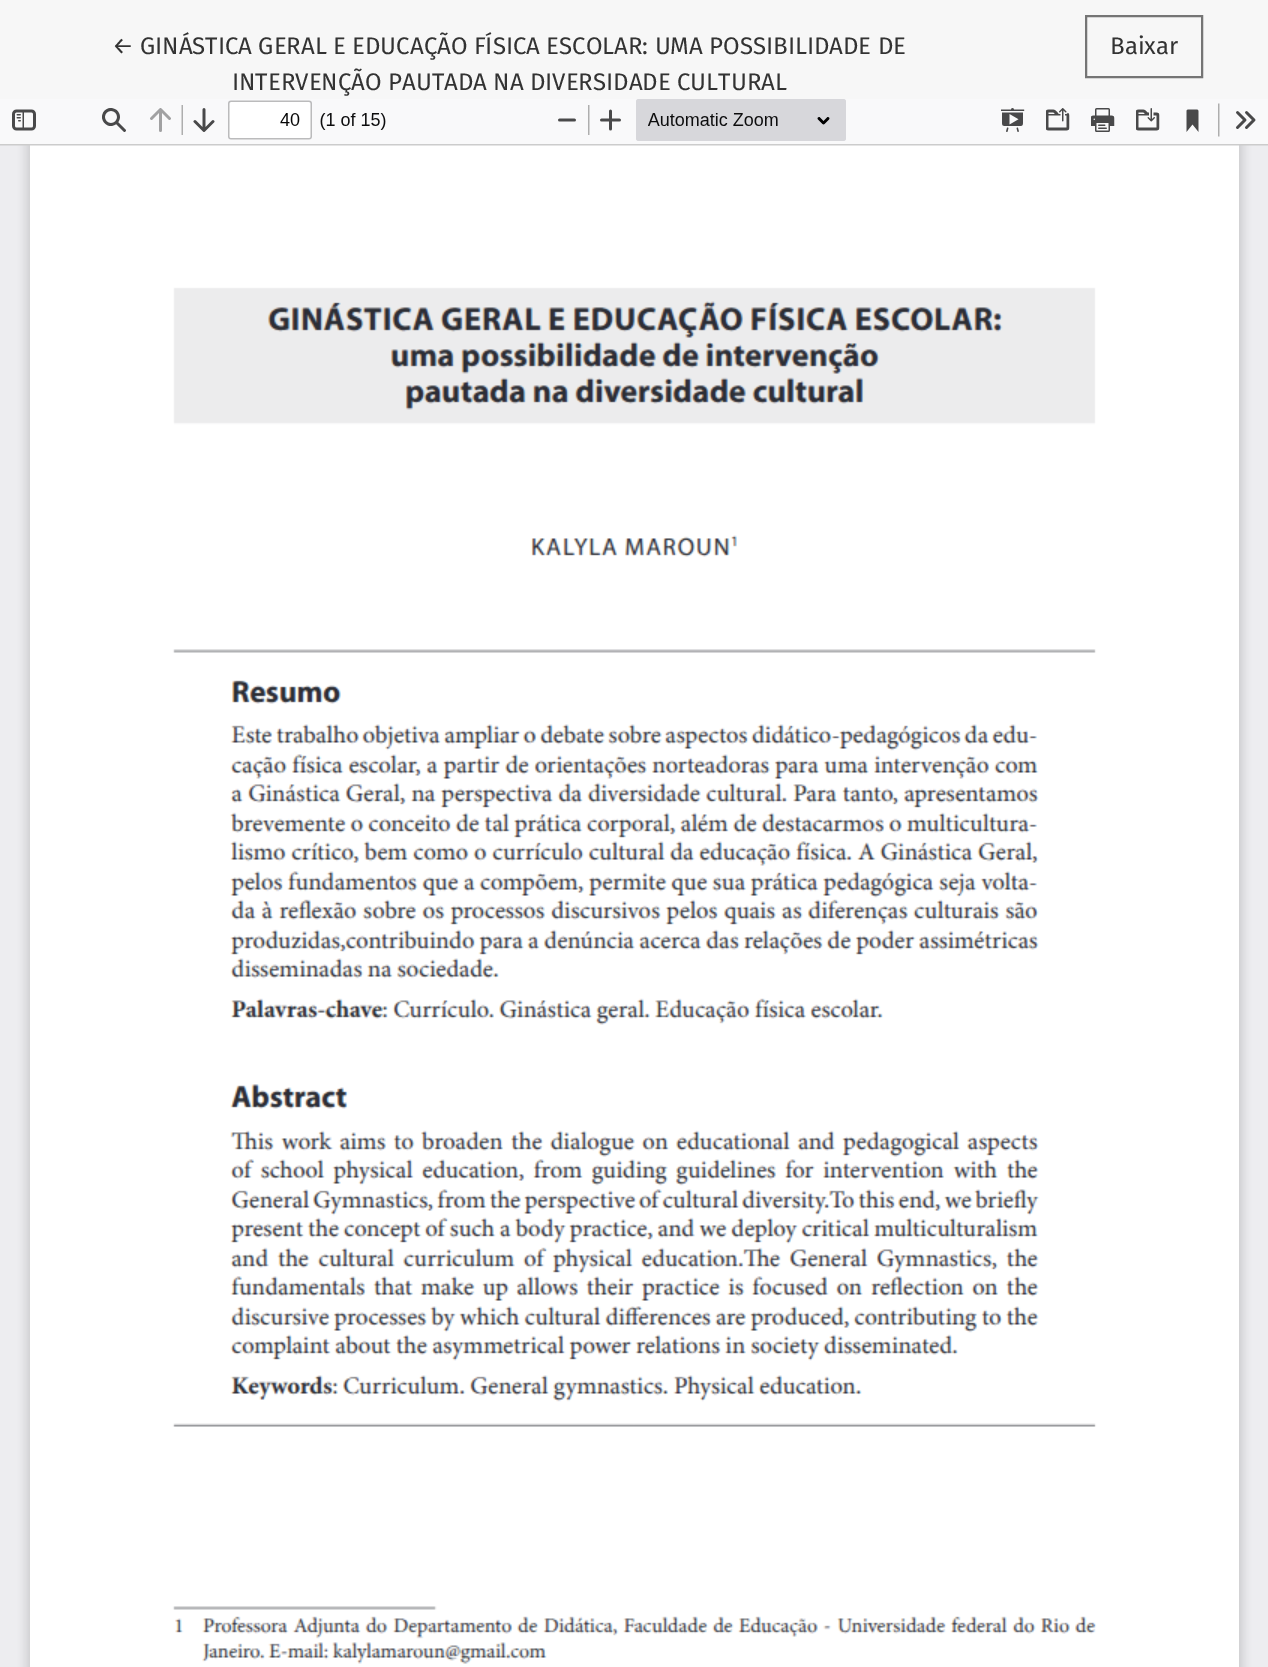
%!PS
<< /PageSize [1268 1667] >> setpagedevice
/rgb { 3 { 255 div 3 1 roll } repeat setrgbcolor } def
/font { [ exch dup neg 0 0 3 -1 roll 0 0 ] selectfont } def
/picture { 5 dict begin { /h /w /y /x /name } { exch def } forall
  gsave x y translate w h scale
  w h 8 [w 0 0 h 0 0] name (r) file false 3 colorimage grestore end } def
0 1667 translate 1 -1 scale
4 setmiterlimit
247 247 247 rgb
0 0 1268 1667 rectfill
117 117 117 rgb
2 setlinewidth
1086 16 116 61 rectstroke
(img/1.rgb) 0 99 1268 1568 picture
/FiraSans-Regular 24 font
51 51 51 rgb
[
  [(← GINÁSTICA GERAL E EDUCAÇÃO FÍSICA ESCOLAR: UMA POSSIBILIDADE DE) 112 54]
  [(INTERVENÇÃO PAUTADA NA DIVERSIDADE CULTURAL) 232 90]
  [(Baixar) 1110 54]
] { aload pop moveto show } forall
showpage
